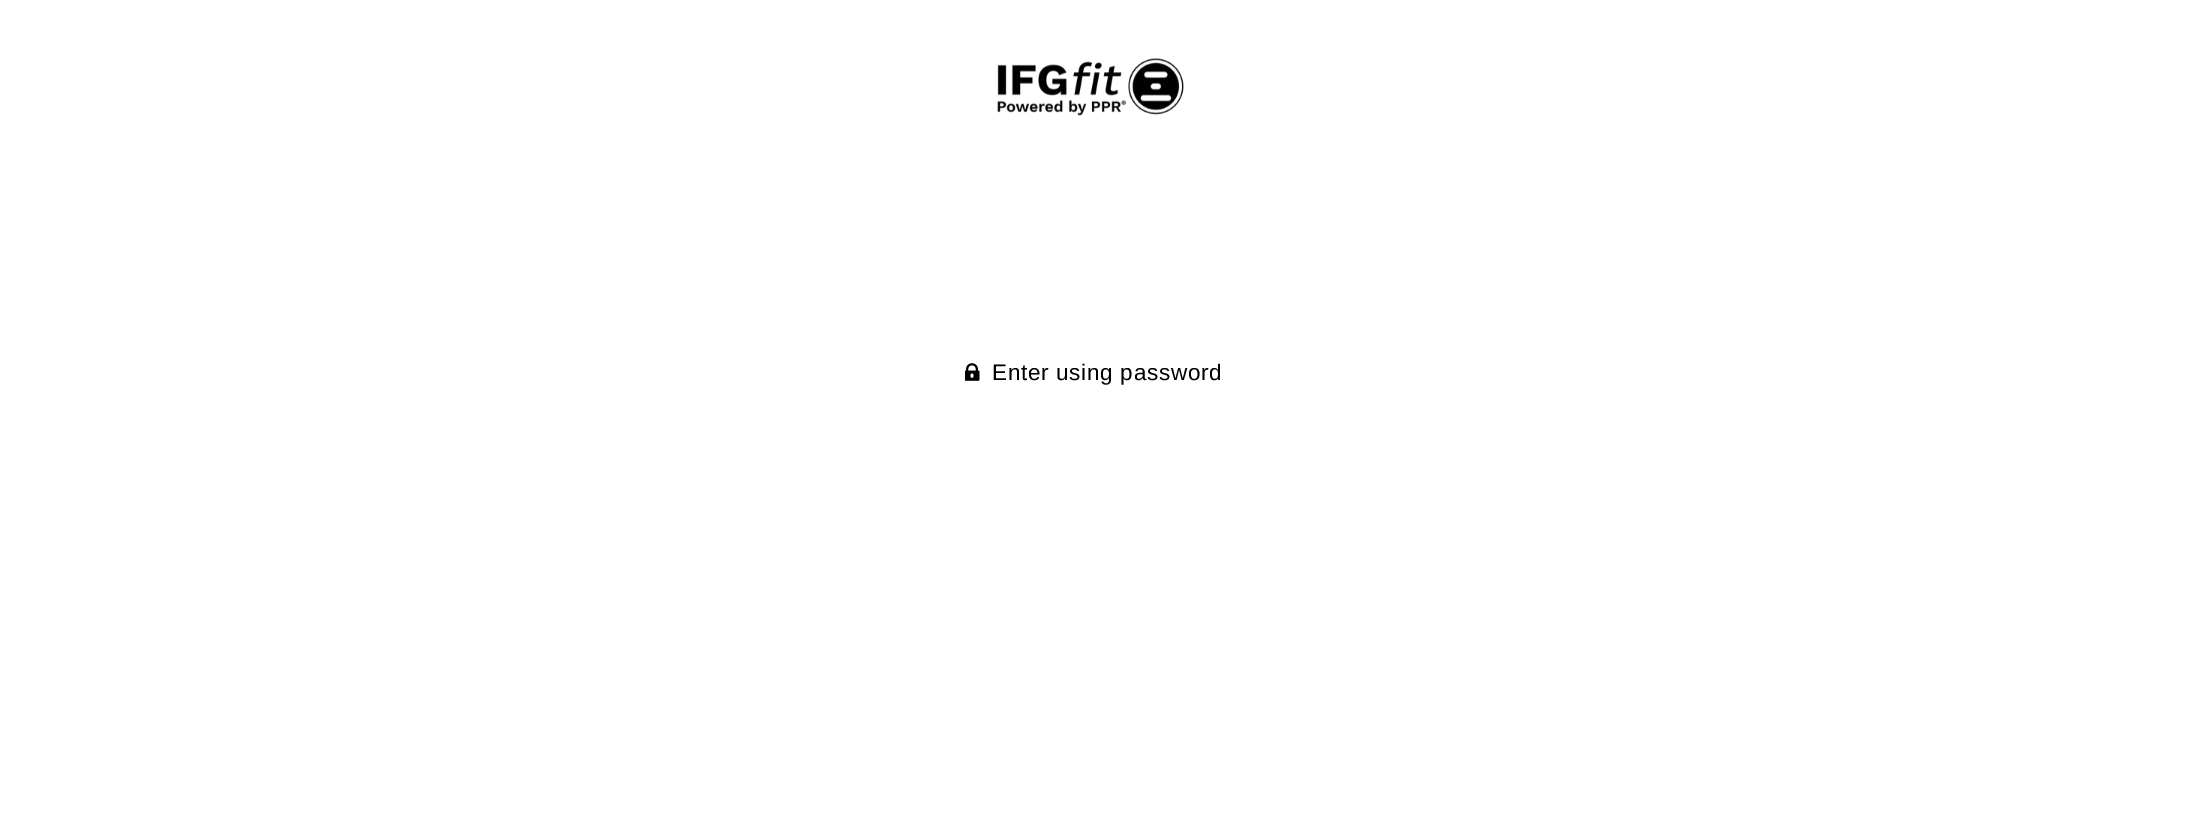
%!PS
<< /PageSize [2185 815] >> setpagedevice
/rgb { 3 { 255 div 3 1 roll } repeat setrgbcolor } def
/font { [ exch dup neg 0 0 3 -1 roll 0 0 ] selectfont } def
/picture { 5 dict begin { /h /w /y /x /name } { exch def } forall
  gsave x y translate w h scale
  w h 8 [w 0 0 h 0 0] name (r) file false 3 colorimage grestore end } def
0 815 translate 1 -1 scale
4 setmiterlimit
255 255 255 rgb
0 0 2185 815 rectfill
(img/1.rgb) 997 58 187 58 picture
(img/2.rgb) 965 363 15 18 picture
/LiberationSans-Regular 22.5 font
0 0 0 rgb
992 380 moveto 0.7 0 (Enter using password) ashow
showpage
